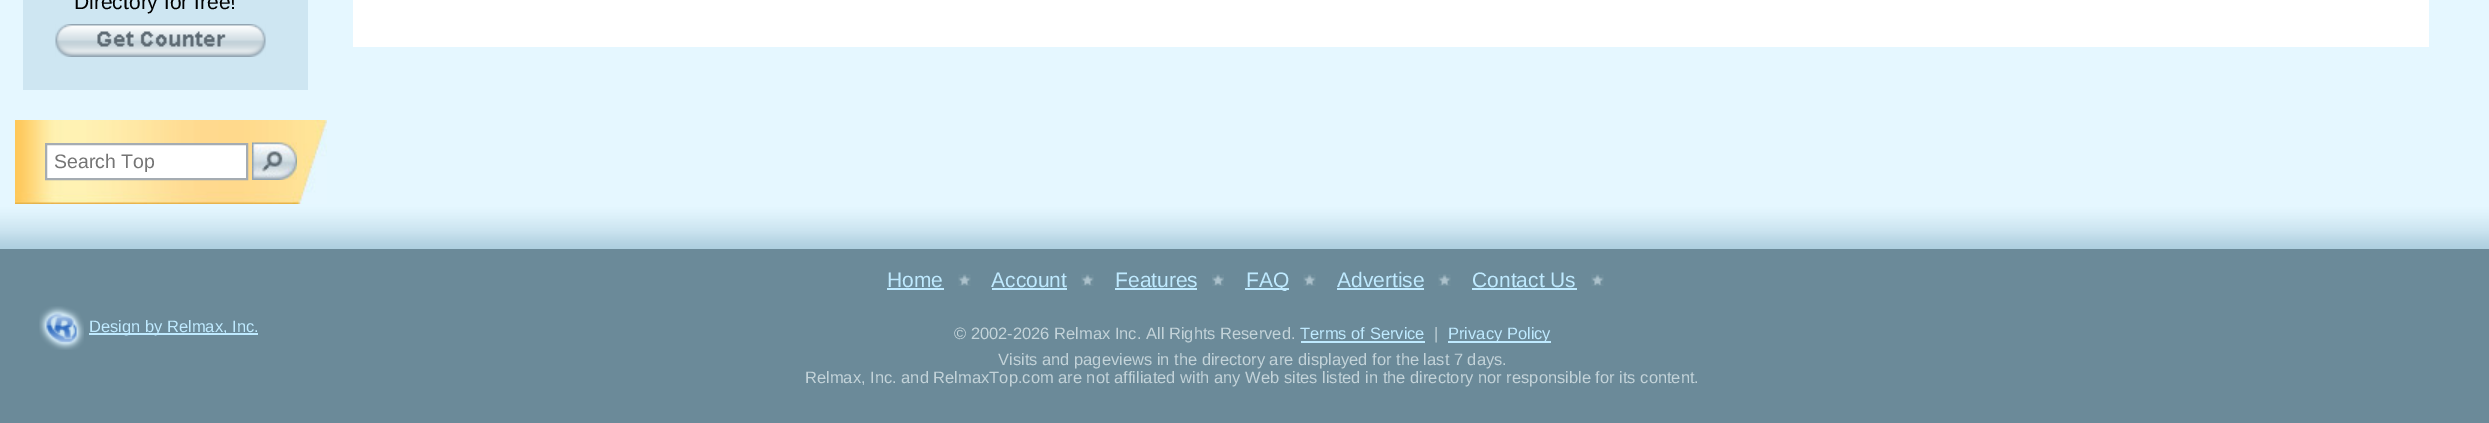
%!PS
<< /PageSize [2489 423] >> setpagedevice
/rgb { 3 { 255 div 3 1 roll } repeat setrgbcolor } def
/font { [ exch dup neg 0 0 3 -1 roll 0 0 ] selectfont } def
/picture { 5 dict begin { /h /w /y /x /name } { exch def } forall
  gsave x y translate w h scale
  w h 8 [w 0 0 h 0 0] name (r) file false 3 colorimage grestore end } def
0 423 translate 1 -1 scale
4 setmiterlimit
229 247 255 rgb
0 0 2489 423 rectfill
206 230 242 rgb
23 0 285 90 rectfill
(img/1.rgb) 55 24 211 33 picture
(img/2.rgb) 15 120 312 84 picture
255 255 255 rgb
46 144 moveto 247 144 lineto 247 179 lineto 46 179 lineto closepath gsave fill grestore
165 172 178 rgb
2 setlinewidth
stroke
(img/3.rgb) 252 142 45 38 picture
255 255 255 rgb
353 0 2076 47 rectfill
107 138 153 rgb
0 249 2489 174 rectfill
(img/4.rgb) 0 207 2489 42 picture
(img/5.rgb) 39 306 45 44 picture
191 234 255 rgb
89 333 169 2 rectfill
887 288 57 2 rectfill
(img/6.rgb) 958 274 13 12 picture
992 288 75 2 rectfill
(img/6.rgb) 1081 274 13 12 picture
1115 288 82 2 rectfill
(img/7.rgb) 1212 274 12 12 picture
1245 288 44 2 rectfill
(img/8.rgb) 1303 274 13 12 picture
1337 288 87 2 rectfill
(img/8.rgb) 1438 274 13 12 picture
1472 288 105 2 rectfill
(img/6.rgb) 1591 274 13 12 picture
1301 341 124 2 rectfill
1448 341 103 2 rectfill
/LiberationSans-Regular 21 font
0 0 0 rgb
74 9 moveto (Directory for free!) show
/LiberationSans-Regular 19.5 font
117 117 117 rgb
54 168 moveto (Search Top) show
/LiberationSans-Regular 16.5 font
191 234 255 rgb
89 332 moveto (Design by Relmax, Inc.) show
/LiberationSans-Regular 21 font
[
  [(Home) 887 287]
  [(Account) 991 287]
  [(Features) 1115 287]
  [(FAQ) 1246 287]
  [(Advertise) 1337 287]
  [(Contact Us) 1472 287]
] { aload pop moveto show } forall
/LiberationSans-Regular 16.5 font
195 211 217 rgb
954 339 moveto (© 2002-2026 Relmax Inc. All Rights Reserved.) show
191 234 255 rgb
1300 339 moveto (Terms of Service) show
195 211 217 rgb
1434 339 moveto (|) show
191 234 255 rgb
1448 339 moveto (Privacу Policy) show
195 211 217 rgb
998 365 moveto (Visits and pageviews in the directory are displayed for the last 7 days.) show
805 383 moveto (Relmax, Inc. and RelmaxTop.com are not affiliated with any Web sites listed in the directory nor responsible for its content.) show
showpage
